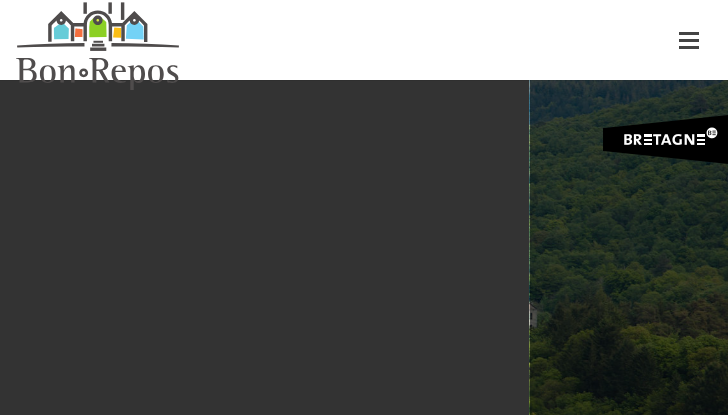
%!PS
<< /PageSize [728 415] /PageUsesTransparency true >> setpagedevice
/rgb { 3 { 255 div 3 1 roll } repeat setrgbcolor } def
/alpha { dup .setfillconstantalpha .setstrokeconstantalpha } def
/picture { 5 dict begin { /h /w /y /x /name } { exch def } forall
  gsave x y translate w h scale
  w h 8 [w 0 0 h 0 0] name (r) file false 3 colorimage grestore end } def
0 .pushpdf14devicefilter
0 415 translate 1 -1 scale
4 setmiterlimit
51 51 51 rgb
0 0 728 415 rectfill
(img/3.rgb) 529 80 199 335 picture
0.08 alpha
0 0 0 rgb
0 80 728 1 rectfill
1 alpha
255 255 255 rgb
0 0 728 80 rectfill
(img/1.rgb) 16 2 163 88 picture
[
  [679 39 20 3 68 68 68]
  [679 32 20 3 68 68 68]
  [679 46 20 3 68 68 68]
] { aload pop rgb rectfill } forall
(img/2.rgb) 603 115 125 49 picture
.poppdf14devicefilter showpage
